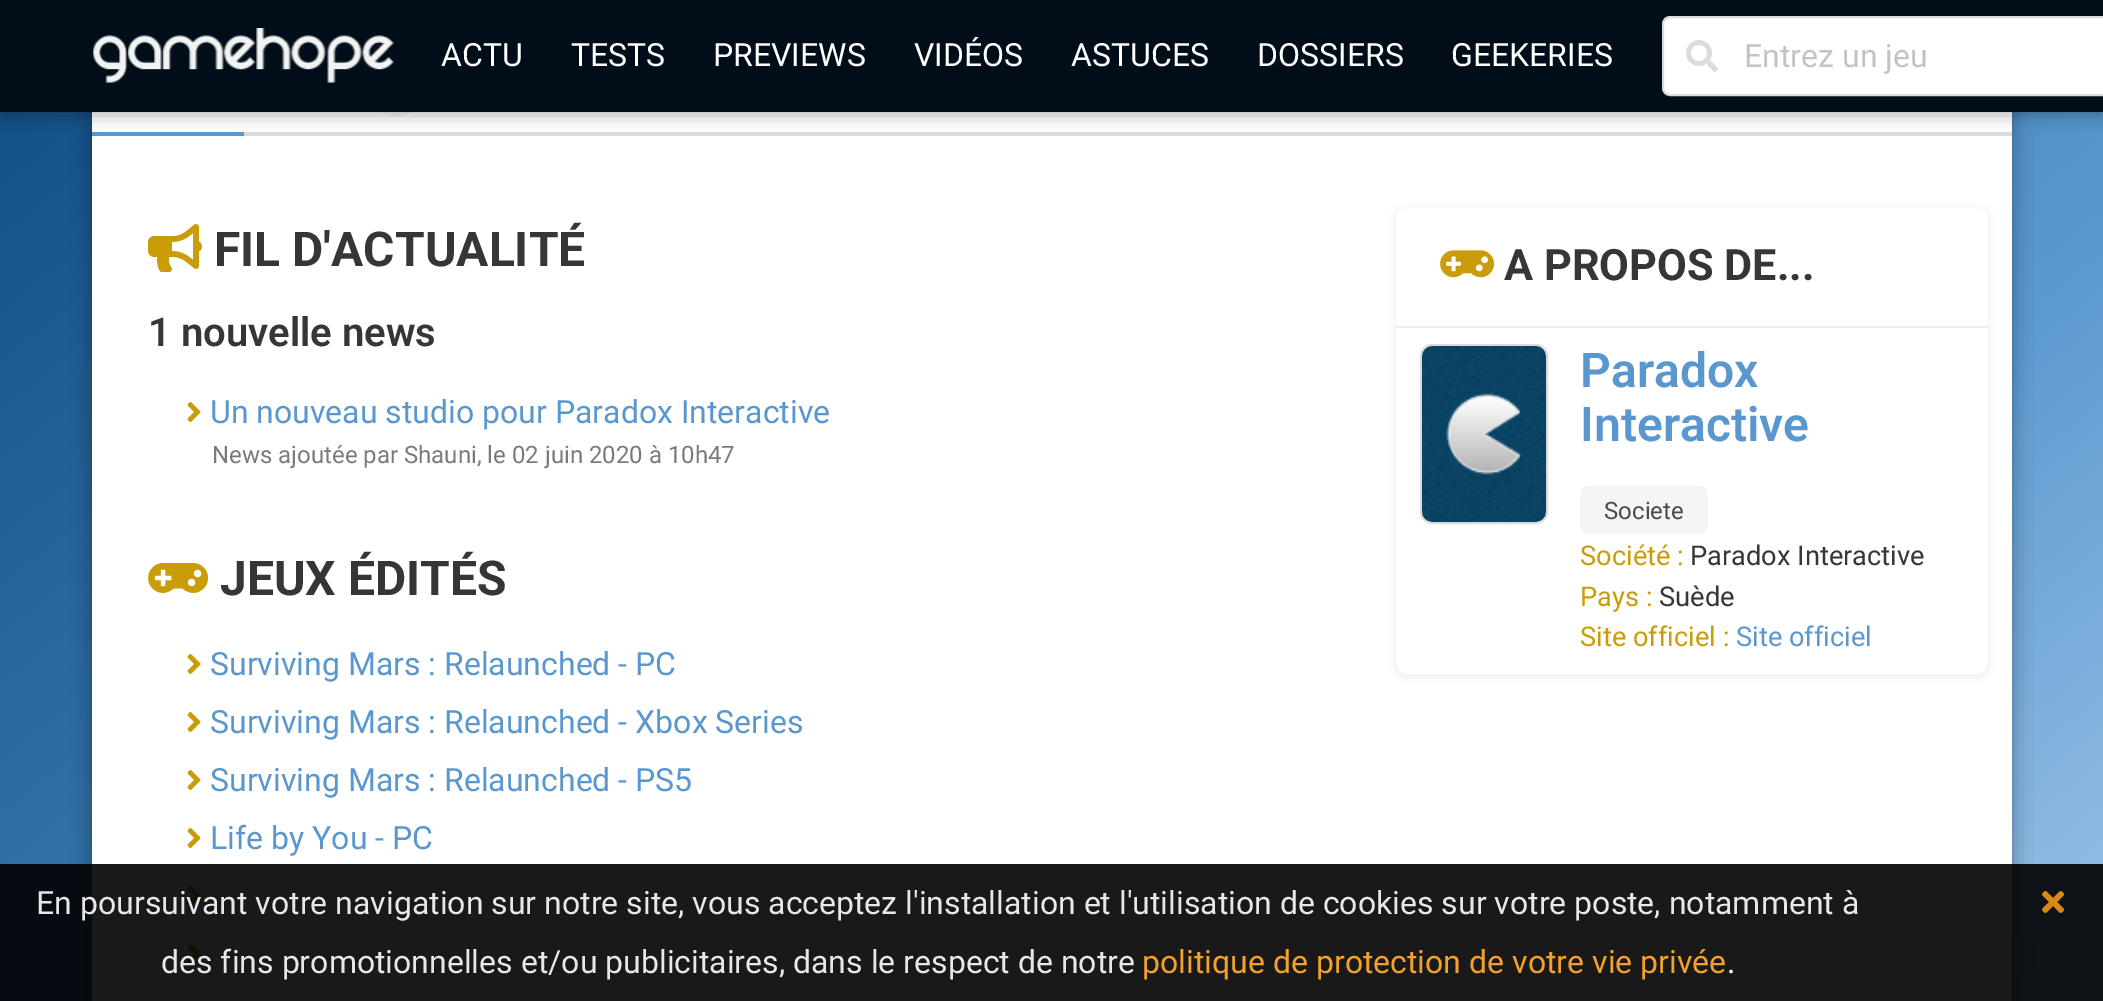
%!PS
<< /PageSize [2103 1001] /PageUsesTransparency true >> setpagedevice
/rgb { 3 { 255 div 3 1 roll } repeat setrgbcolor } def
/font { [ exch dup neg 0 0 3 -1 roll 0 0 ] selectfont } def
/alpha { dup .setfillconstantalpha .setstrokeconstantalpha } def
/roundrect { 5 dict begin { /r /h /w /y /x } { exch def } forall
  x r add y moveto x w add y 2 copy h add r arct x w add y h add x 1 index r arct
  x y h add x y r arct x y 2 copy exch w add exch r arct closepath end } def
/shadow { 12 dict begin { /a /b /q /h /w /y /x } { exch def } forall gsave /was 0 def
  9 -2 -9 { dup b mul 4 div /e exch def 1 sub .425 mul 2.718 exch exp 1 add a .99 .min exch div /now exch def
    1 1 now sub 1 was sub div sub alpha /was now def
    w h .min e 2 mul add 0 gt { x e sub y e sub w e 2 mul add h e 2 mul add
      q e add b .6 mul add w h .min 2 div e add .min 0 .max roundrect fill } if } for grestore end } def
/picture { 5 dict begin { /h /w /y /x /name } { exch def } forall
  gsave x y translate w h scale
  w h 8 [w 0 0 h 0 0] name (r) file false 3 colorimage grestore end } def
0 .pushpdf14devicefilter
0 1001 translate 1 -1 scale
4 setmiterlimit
255 255 255 rgb
0 0 2103 1001 rectfill
gsave 0 112 moveto 2103 112 lineto 2103 1001 lineto 0 1001 lineto closepath clip newpath
<< /ShadingType 2 /ColorSpace /DeviceRGB /Coords [390 -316 1714 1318] /Extend [true true] /Function << /FunctionType 3 /Domain [0 1] /Functions [<< /FunctionType 2 /Domain [0 1] /C0 [0.059 0.298 0.514] /C1 [0.349 0.592 0.808] /N 1 >> << /FunctionType 2 /Domain [0 1] /C0 [0.349 0.592 0.808] /C1 [0.604 0.765 0.91] /N 1 >>] /Bounds [0.71] /Encode [0 1 0 1] >> >> shfill grestore
0 0 0 rgb
92 -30 1920 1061 0 10 0.35 shadow
255 255 255 rgb
92 112 1920 889 rectfill
219 219 219 rgb
244 132 1768 4 rectfill
245 245 245 rgb
372 68 50 48 24 roundrect fill
89 151 206 rgb
92 132 152 4 rectfill
0 0 0 rgb
0 -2 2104 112 0 10 0.5 shadow
1 14 26 rgb
0 0 2103 112 rectfill
(img/1.rgb) 93 28 301 55 picture
255 255 255 rgb
1663 17 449 78 7 roundrect gsave fill grestore
219 219 219 rgb
2 setlinewidth
stroke
(img/2.rgb) 1686 40 32 32 picture
(img/3.rgb) 148 224 54 48 picture
(img/4.rgb) 187 402 14 20 picture
(img/5.rgb) 148 563 61 30 picture
(img/4.rgb) 187 654 14 20 picture
(img/4.rgb) 187 712 14 20 picture
(img/4.rgb) 187 770 14 20 picture
(img/4.rgb) 187 828 14 20 picture
(img/4.rgb) 187 886 14 20 picture
(img/4.rgb) 187 944 14 20 picture
gsave
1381 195 moveto 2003 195 lineto 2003 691 lineto 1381 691 lineto closepath 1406 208 moveto 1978 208 lineto 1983.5 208 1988 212.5 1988 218 curveto 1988 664 lineto 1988 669.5 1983.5 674 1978 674 curveto 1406 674 lineto 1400.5 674 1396 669.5 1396 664 curveto 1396 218 lineto 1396 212.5 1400.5 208 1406 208 curveto closepath eoclip newpath
0 0 0 rgb
1394 208 596 470 12 4 0.06 shadow
grestore
237 237 237 rgb
1396 326 592 2 rectfill
(img/6.rgb) 1440 250 55 28 picture
219 219 219 rgb
1421 345 126 178 11 roundrect stroke
(img/7.rgb) 1422 346 124 176 picture
245 245 245 rgb
1580 486 128 48 8 roundrect fill
0.9 alpha
0 0 0 rgb
0 864 2103 137 rectfill
1 alpha
(img/8.rgb) 2042 891 22 22 picture
/Roboto-Regular 32 font
255 255 255 rgb
[
  [(ACTU) 441 66]
  [(TESTS) 571 66]
  [(PREVIEWS) 713 66]
  [(VIDÉOS) 914 66]
  [(ASTUCES) 1071 66]
  [(DOSSIERS) 1257 66]
  [(GEEKERIES) 1451 66]
] { aload pop moveto show } forall
195 195 195 rgb
1744 67 moveto (Entrez un jeu) show
/Roboto-Bold 48 font
54 54 54 rgb
214 266 moveto (FIL D'ACTUALITÉ) show
/Roboto-SemiBold 40 font
148 346 moveto (1 nouvelle news) show
/Roboto-Regular 32 font
89 151 206 rgb
210 423 moveto (Un nouveau studio pour Paradox Interactive) show
/Roboto-Regular 24 font
122 122 122 rgb
212 463 moveto (News ajoutée par Shauni, le 02 juin 2020 à 10h47) show
/Roboto-Bold 48 font
54 54 54 rgb
220 595 moveto (JEUX ÉDITÉS) show
/Roboto-Regular 32 font
89 151 206 rgb
[
  [(Surviving Mars : Relaunched - PC) 210 675]
  [(Surviving Mars : Relaunched - Xbox Series) 210 733]
  [(Surviving Mars : Relaunched - PS5) 210 791]
  [(Life by You - PC) 210 849]
] { aload pop moveto show } forall
/Roboto-Bold 43.25 font
54 54 54 rgb
1504 280 moveto (A PROPOS DE...) show
/Roboto-SemiBold 48 font
89 151 206 rgb
1580 387 moveto (Paradox) show
1580 441 moveto (Interactive) show
/Roboto-Regular 24 font
74 74 74 rgb
1604 519 moveto (Societe) show
/Roboto-Regular 27.25 font
202 156 9 rgb
1580 565 moveto (Société :) show
54 54 54 rgb
1690 565 moveto (Paradox Interactive) show
202 156 9 rgb
1580 606 moveto (Pays :) show
54 54 54 rgb
1659 606 moveto (Suède) show
202 156 9 rgb
1580 646 moveto (Site officiel :) show
89 151 206 rgb
1736 646 moveto (Site officiel) show
/Roboto-Regular 32 font
232 232 232 rgb
36 914 moveto (En poursuivant votre navigation sur notre site, vous acceptez l'installation et l'utilisation de cookies sur votre poste, notamment à) show
161 973 moveto (des fins promotionnelles et/ou publicitaires, dans le respect de notre) show
241 161 44 rgb
1142 973 moveto (politique de protection de votre vie privée) show
255 255 255 rgb
1727 973 moveto (.) show
.poppdf14devicefilter showpage
